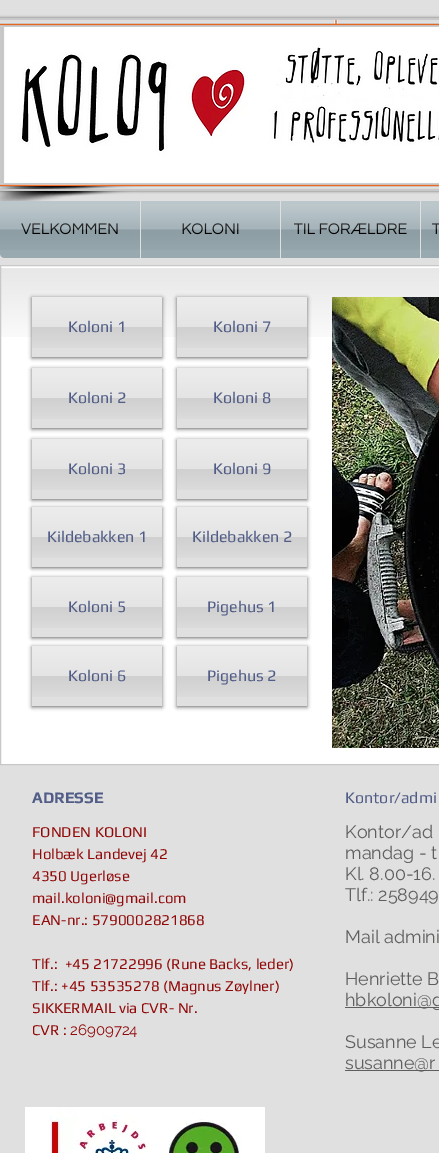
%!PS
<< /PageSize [439 1153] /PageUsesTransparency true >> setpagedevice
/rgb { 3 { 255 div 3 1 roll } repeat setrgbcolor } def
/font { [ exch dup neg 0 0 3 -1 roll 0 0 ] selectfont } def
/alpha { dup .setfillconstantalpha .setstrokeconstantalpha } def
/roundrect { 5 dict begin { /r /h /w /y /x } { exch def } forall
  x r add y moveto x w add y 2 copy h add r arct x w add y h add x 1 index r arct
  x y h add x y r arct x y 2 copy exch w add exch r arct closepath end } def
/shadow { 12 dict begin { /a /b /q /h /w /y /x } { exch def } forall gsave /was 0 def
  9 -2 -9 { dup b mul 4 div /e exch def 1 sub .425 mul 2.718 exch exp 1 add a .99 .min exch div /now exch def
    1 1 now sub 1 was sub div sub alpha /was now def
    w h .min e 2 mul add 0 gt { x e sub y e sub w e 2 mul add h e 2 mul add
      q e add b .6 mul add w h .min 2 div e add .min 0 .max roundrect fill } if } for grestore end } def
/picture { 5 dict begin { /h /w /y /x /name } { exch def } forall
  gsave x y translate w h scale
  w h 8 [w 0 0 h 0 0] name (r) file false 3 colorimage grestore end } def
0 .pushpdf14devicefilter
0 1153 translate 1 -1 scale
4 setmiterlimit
224 224 224 rgb
0 0 439 1153 rectfill
0 0 0 rgb
-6 18 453 173 3 1.5 0.5 shadow
200 200 200 rgb
0 18 439 173 rectfill
(img/1.rgb) 0 20 439 169 picture
(img/2.rgb) 0 191 139 10 picture
152 169 176 rgb
0 201 moveto 140 201 lineto 140 258 lineto 5 258 lineto 2 258 0 256 0 253 curveto closepath fill
[
  [141 201 139 57 152 169 176]
  [281 201 139 57 152 169 176]
  [421 201 18 57 152 169 176]
  [1 266 438 498 255 255 255]
] { aload pop rgb rectfill } forall
(img/7.rgb) 1 268 438 69 picture
200 200 200 rgb
0.5 265.5 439 499 rectstroke
0 0 0 rgb
32 298 130 60 0 2 0.6 shadow
224 224 224 rgb
32 297 130 60 rectfill
(img/8.rgb) 32 297 130 51 picture
0 0 0 rgb
177 298 130 60 0 2 0.6 shadow
224 224 224 rgb
177 297 130 60 rectfill
(img/8.rgb) 177 297 130 51 picture
(img/9.rgb) 332 297 107 451 picture
0 0 0 rgb
32 369 130 60 0 2 0.6 shadow
224 224 224 rgb
32 368 130 60 rectfill
(img/8.rgb) 32 368 130 51 picture
0 0 0 rgb
177 369 130 60 0 2 0.6 shadow
224 224 224 rgb
177 368 130 60 rectfill
(img/8.rgb) 177 368 130 51 picture
0 0 0 rgb
32 440 130 60 0 2 0.6 shadow
224 224 224 rgb
32 439 130 60 rectfill
(img/8.rgb) 32 439 130 51 picture
0 0 0 rgb
177 440 130 60 0 2 0.6 shadow
224 224 224 rgb
177 439 130 60 rectfill
(img/8.rgb) 177 439 130 51 picture
0 0 0 rgb
32 508 130 60 0 2 0.6 shadow
224 224 224 rgb
32 507 130 60 rectfill
(img/8.rgb) 32 507 130 51 picture
0 0 0 rgb
177 508 130 60 0 2 0.6 shadow
224 224 224 rgb
177 507 130 60 rectfill
(img/8.rgb) 177 507 130 51 picture
0 0 0 rgb
32 578 130 60 0 2 0.6 shadow
224 224 224 rgb
32 577 130 60 rectfill
(img/8.rgb) 32 577 130 51 picture
0 0 0 rgb
177 578 130 60 0 2 0.6 shadow
224 224 224 rgb
177 577 130 60 rectfill
(img/8.rgb) 177 577 130 51 picture
0 0 0 rgb
32 647 130 60 0 2 0.6 shadow
224 224 224 rgb
32 646 130 60 rectfill
(img/8.rgb) 32 646 130 51 picture
0 0 0 rgb
177 647 130 60 0 2 0.6 shadow
224 224 224 rgb
177 646 130 60 rectfill
(img/8.rgb) 177 646 130 51 picture
95 94 93 rgb
345 1007 94 1 rectfill
345 1070 94 1 rectfill
(img/10.rgb) 25 1107 240 46 picture
/Questrial-Regular 16 font
0 0 0 rgb
21 234 moveto (VELKOMMEN) show
(img/3.rgb) 0 201 140 49 picture
181 234 moveto (KOLONI) show
(img/4.rgb) 141 201 139 49 picture
294 234 moveto (TIL FORÆLDRE) show
(img/5.rgb) 281 201 139 49 picture
432 234 moveto (T) show
(img/6.rgb) 421 201 18 49 picture
/Play-Regular 16 font
81 93 135 rgb
[
  [(Koloni 1) 68 332]
  [(Koloni 7) 213 332]
  [(Koloni 2) 68 403]
  [(Koloni 8) 213 403]
  [(Koloni 3) 68 474]
  [(Koloni 9) 213 474]
  [(Kildebakken 1) 47 542]
  [(Kildebakken 2) 192 542]
  [(Koloni 5) 68 612]
  [(Pigehus 1) 207 612]
  [(Koloni 6) 68 681]
  [(Pigehus 2) 207 681]
] { aload pop moveto show } forall
/Play-Bold 16 font
32 803 moveto (ADRESSE) show
/Play-Regular 16 font
345 803 moveto (Kontor/admi) show
/Play-Regular 15 font
145 8 8 rgb
[
  [(FONDEN KOLONI) 32 837]
  [(Holbæk Landevej 42) 32 859]
  [(4350 Ugerløse) 32 881]
  [(mail.koloni@gmail.com) 32 903]
  [(EAN-nr.: 5790002821868) 32 925]
  [(Tlf.:  +45 21722996 \(Rune Backs, leder\)) 32 969]
  [(Tlf.: +45 53535278 \(Magnus Zøylner\)) 32 991]
  [(SIKKERMAIL via CVR- Nr.) 32 1013]
  [(CVR :) 32 1035]
] { aload pop moveto show } forall
/Raleway-Regular 15 font
70 1035 moveto (26909724) show
/Raleway-Regular 18 font
95 94 93 rgb
[
  [(Kontor/ad) 345 838]
  [(mandag - t) 345 859]
  [(Kl. 8.00-16.) 345 880]
  [(Tlf.: 258949) 345 901]
  [(Mail admini) 345 943]
  [(Henriette B) 345 985]
  [(hbkoloni@g) 345 1006]
  [(Susanne Le) 345 1048]
  [(susanne@r) 345 1069]
] { aload pop moveto show } forall
.poppdf14devicefilter showpage
